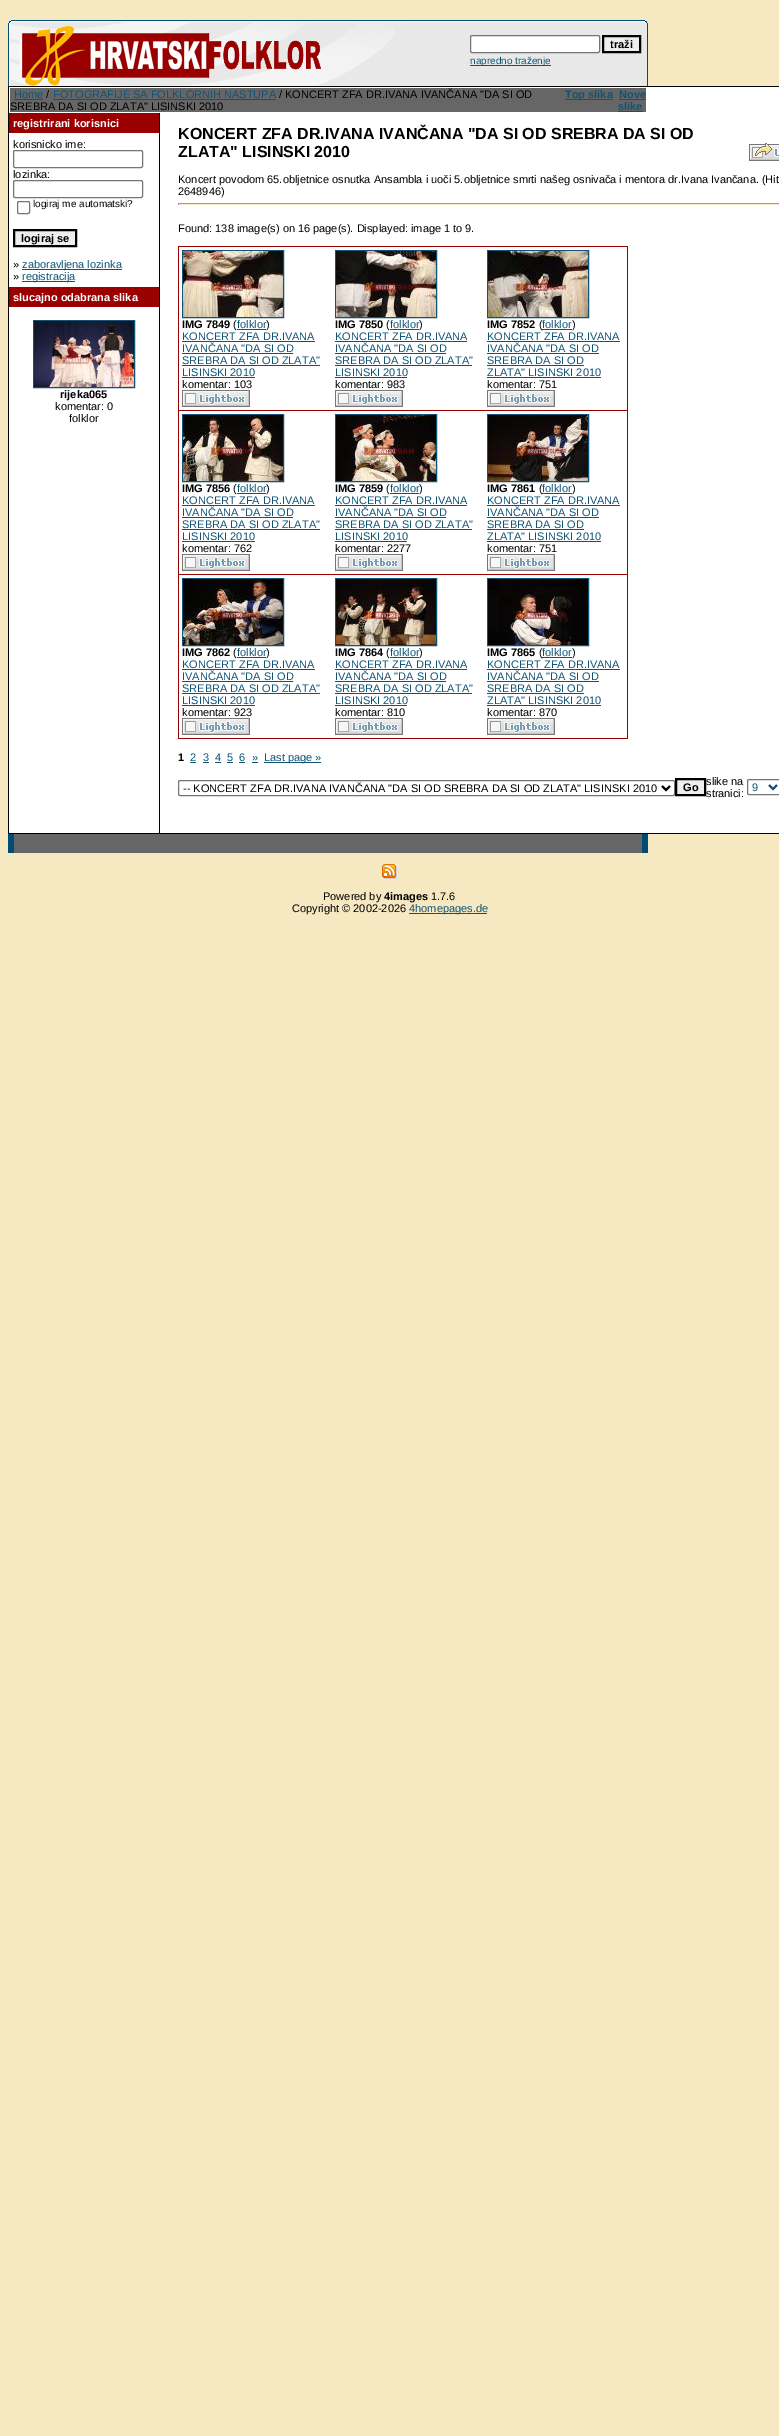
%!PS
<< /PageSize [779 2436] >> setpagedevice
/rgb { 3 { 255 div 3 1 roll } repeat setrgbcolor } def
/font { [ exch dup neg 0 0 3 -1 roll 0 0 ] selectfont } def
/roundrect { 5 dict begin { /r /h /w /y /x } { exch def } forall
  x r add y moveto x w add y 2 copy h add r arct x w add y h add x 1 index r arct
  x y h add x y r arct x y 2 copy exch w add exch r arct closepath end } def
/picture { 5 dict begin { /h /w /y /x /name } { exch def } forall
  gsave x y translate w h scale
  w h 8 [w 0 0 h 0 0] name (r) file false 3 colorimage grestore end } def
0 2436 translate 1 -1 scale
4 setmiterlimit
246 232 193 rgb
0 0 779 2436 rectfill
232 232 232 rgb
8 20 640 66 rectfill
(img/1.rgb) 8 20 640 6 picture
(img/2.rgb) 8 26 6 60 picture
(img/3.rgb) 14 26 381 60 picture
255 255 255 rgb
470.5 35.5 129 17 1.5 roundrect gsave fill grestore
118 118 118 rgb
stroke
238 238 238 rgb
603 36 moveto 640 36 lineto 640 52 lineto 603 52 lineto closepath gsave fill grestore
0 0 0 rgb
2 setlinewidth
stroke
[
  [470 65 81 1 15 84 117]
  [647 26 1 60 0 76 117]
  [8 86 771 748 0 0 0]
  [9 87 770 746 255 255 255]
  [10 88 636 24 102 102 102]
  [14 99 29 1 15 84 117]
  [53 99 223 1 15 84 117]
  [565 99 48 1 15 84 117]
  [619 99 27 1 15 84 117]
  [618 111 25 1 15 84 117]
  [9 113 150 20 154 0 0]
] { aload pop rgb rectfill } forall
118 118 118 rgb
1 setlinewidth
13.5 150.5 129 17 1.5 roundrect stroke
13.5 180.5 129 17 1.5 roundrect stroke
17.5 201.5 12 12 1.5 roundrect stroke
238 238 238 rgb
14 230 moveto 76 230 lineto 76 246 lineto 14 246 lineto closepath gsave fill grestore
0 0 0 rgb
2 setlinewidth
stroke
[
  [22 269 100 1 15 84 117]
  [22 281 53 1 15 84 117]
  [9 287 150 20 154 0 0]
] { aload pop rgb rectfill } forall
15 84 117 rgb
1 setlinewidth
33.5 320.5 101 67 rectstroke
(img/4.rgb) 34 321 100 66 picture
0 0 0 rgb
159 113 1 720 rectfill
(img/5.rgb) 749 143 30 18 picture
[
  [178 204 601 1 246 232 193]
  [178 203 601 1 159 159 159]
  [178 203 1 2 159 159 159]
  [178 246 450 493 154 0 0]
  [179 247 448 163 255 255 255]
] { aload pop rgb rectfill } forall
15 84 117 rgb
182.5 250.5 101 67 rectstroke
(img/6.rgb) 183 251 100 66 picture
[
  [237 329 29 1 15 84 117]
  [182 341 133 1 15 84 117]
  [182 353 111 1 15 84 117]
  [182 365 138 1 15 84 117]
  [182 377 73 1 15 84 117]
] { aload pop rgb rectfill } forall
(img/7.rgb) 182 390 68 17 picture
335.5 250.5 101 67 rectstroke
(img/8.rgb) 336 251 100 66 picture
[
  [390 329 29 1 15 84 117]
  [335 341 132 1 15 84 117]
  [335 353 111 1 15 84 117]
  [335 365 137 1 15 84 117]
  [335 377 72 1 15 84 117]
] { aload pop rgb rectfill } forall
(img/7.rgb) 335 390 68 17 picture
487.5 250.5 101 67 rectstroke
(img/9.rgb) 488 251 100 66 picture
[
  [487 341 133 1 15 84 117]
  [487 353 112 1 15 84 117]
  [487 365 97 1 15 84 117]
  [487 377 114 1 15 84 117]
] { aload pop rgb rectfill } forall
(img/7.rgb) 487 390 68 17 picture
255 255 255 rgb
179 411 448 163 rectfill
15 84 117 rgb
182.5 414.5 101 67 rectstroke
(img/10.rgb) 183 415 100 66 picture
[
  [237 493 29 1 15 84 117]
  [182 505 133 1 15 84 117]
  [182 517 111 1 15 84 117]
  [182 529 138 1 15 84 117]
  [182 541 73 1 15 84 117]
] { aload pop rgb rectfill } forall
(img/7.rgb) 182 554 68 17 picture
335.5 414.5 101 67 rectstroke
(img/11.rgb) 336 415 100 66 picture
[
  [390 493 29 1 15 84 117]
  [335 505 132 1 15 84 117]
  [335 517 111 1 15 84 117]
  [335 529 137 1 15 84 117]
  [335 541 72 1 15 84 117]
] { aload pop rgb rectfill } forall
(img/7.rgb) 335 554 68 17 picture
487.5 414.5 101 67 rectstroke
(img/12.rgb) 488 415 100 66 picture
[
  [487 505 133 1 15 84 117]
  [487 517 112 1 15 84 117]
  [487 529 97 1 15 84 117]
  [487 541 114 1 15 84 117]
] { aload pop rgb rectfill } forall
(img/7.rgb) 487 554 68 17 picture
255 255 255 rgb
179 575 448 163 rectfill
15 84 117 rgb
182.5 578.5 101 67 rectstroke
(img/13.rgb) 183 579 100 66 picture
[
  [237 657 29 1 15 84 117]
  [182 669 133 1 15 84 117]
  [182 681 111 1 15 84 117]
  [182 693 138 1 15 84 117]
  [182 705 73 1 15 84 117]
] { aload pop rgb rectfill } forall
(img/7.rgb) 182 718 68 17 picture
335.5 578.5 101 67 rectstroke
(img/14.rgb) 336 579 100 66 picture
[
  [390 657 29 1 15 84 117]
  [335 669 132 1 15 84 117]
  [335 681 111 1 15 84 117]
  [335 693 137 1 15 84 117]
  [335 705 72 1 15 84 117]
] { aload pop rgb rectfill } forall
(img/7.rgb) 335 718 68 17 picture
487.5 578.5 101 67 rectstroke
(img/15.rgb) 488 579 100 66 picture
[
  [487 669 133 1 15 84 117]
  [487 681 112 1 15 84 117]
  [487 693 97 1 15 84 117]
  [487 705 114 1 15 84 117]
] { aload pop rgb rectfill } forall
(img/7.rgb) 487 718 68 17 picture
[
  [190 762 6 1 15 84 117]
  [203 762 6 1 15 84 117]
  [215 762 6 1 15 84 117]
  [227 762 6 1 15 84 117]
  [239 762 6 1 15 84 117]
  [252 762 6 1 15 84 117]
  [264 762 57 1 15 84 117]
] { aload pop rgb rectfill } forall
118 118 118 rgb
178.5 780.5 496 15 1.5 roundrect stroke
0 0 0 rgb
2 setlinewidth
662 786 moveto 666 790 lineto 670 786 lineto stroke
238 238 238 rgb
676 779 moveto 705 779 lineto 705 795 lineto 676 795 lineto closepath gsave fill grestore
0 0 0 rgb
stroke
118 118 118 rgb
1 setlinewidth
747.5 779.5 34 15 1.5 roundrect stroke
15 84 117 rgb
2 setlinewidth
769 785 moveto 773 789 lineto 777 785 lineto stroke
[
  [14 834 628 19 102 102 102]
  [8 834 6 19 0 76 117]
  [642 834 6 19 0 76 117]
] { aload pop rgb rectfill } forall
(img/16.rgb) 382 864 15 15 picture
15 84 117 rgb
409 913 78 1 rectfill
/LiberationSans-Bold 11 font
0 0 0 rgb
610 48 moveto (traži) show
/LiberationSans-Regular 10 font
15 84 117 rgb
470 64 moveto (napredno traženje) show
/LiberationSans-Regular 11 font
14 98 moveto (Home) show
0 0 0 rgb
46 98 moveto (/) show
15 84 117 rgb
53 98 moveto (FOTOGRAFIJE SA FOLKLORNIH NASTUPA) show
0 0 0 rgb
279 98 moveto (/ KONCERT ZFA DR.IVANA IVANČANA "DA SI OD) show
10 110 moveto (SREBRA DA SI OD ZLATA" LISINSKI 2010) show
/LiberationSans-Bold 11 font
15 84 117 rgb
[
  [(Top slika) 565 98]
  [(Nove) 619 98]
  [(slike) 618 110]
] { aload pop moveto show } forall
255 255 255 rgb
13 127 moveto (registrirani korisnici) show
/LiberationSans-Regular 11 font
0 0 0 rgb
13 148 moveto (korisnicko ime:) show
13 178 moveto (lozinka:) show
/LiberationSans-Regular 10 font
33 207 moveto (logiraj me automatski?) show
/LiberationSans-Bold 11 font
21 242 moveto (logiraj se) show
/LiberationSans-Regular 11 font
13 268 moveto (») show
15 84 117 rgb
22 268 moveto (zaboravljena lozinka) show
0 0 0 rgb
13 280 moveto (») show
15 84 117 rgb
22 280 moveto (registracija) show
/LiberationSans-Bold 11 font
255 255 255 rgb
13 301 moveto (slucajno odabrana slika) show
0 0 0 rgb
60 398 moveto (rijeka065) show
/LiberationSans-Regular 11 font
55 410 moveto (komentar: 0) show
69 422 moveto (folklor) show
/LiberationSans-Bold 16 font
178 139 moveto (KONCERT ZFA DR.IVANA IVANČANA "DA SI OD SREBRA DA SI OD) show
178 157 moveto (ZLATA" LISINSKI 2010) show
/LiberationSans-Regular 11 font
[
  [(Koncert povodom 65.obljetnice osnutka Ansambla i uoči 5.obljetnice smrti našeg osnivača i mentora dr.Ivana Ivančana. \(Hit) 178 183]
  [(2648946\)) 178 195]
  [(Found: 138 image\(s\) on 16 page\(s\). Displayed: image 1 to 9.) 178 232]
] { aload pop moveto show } forall
/LiberationSans-Bold 11 font
182 328 moveto (IMG 7849) show
/LiberationSans-Regular 11 font
233 328 moveto (\() show
15 84 117 rgb
237 328 moveto (folklor) show
0 0 0 rgb
266 328 moveto (\)) show
15 84 117 rgb
[
  [(KONCERT ZFA DR.IVANA) 182 340]
  [(IVANČANA "DA SI OD) 182 352]
  [(SREBRA DA SI OD ZLATA") 182 364]
  [(LISINSKI 2010) 182 376]
] { aload pop moveto show } forall
0 0 0 rgb
182 388 moveto (komentar: 103) show
/LiberationSans-Bold 11 font
335 328 moveto (IMG 7850) show
/LiberationSans-Regular 11 font
386 328 moveto (\() show
15 84 117 rgb
390 328 moveto (folklor) show
0 0 0 rgb
419 328 moveto (\)) show
15 84 117 rgb
[
  [(KONCERT ZFA DR.IVANA) 335 340]
  [(IVANČANA "DA SI OD) 335 352]
  [(SREBRA DA SI OD ZLATA") 335 364]
  [(LISINSKI 2010) 335 376]
] { aload pop moveto show } forall
0 0 0 rgb
335 388 moveto (komentar: 983) show
/LiberationSans-Bold 11 font
487 328 moveto (IMG 7852) show
/LiberationSans-Regular 11 font
539 328 moveto (\() show
15 84 117 rgb
542 328 moveto (folklor) show
542 329 30 1 rectfill
0 0 0 rgb
572 328 moveto (\)) show
15 84 117 rgb
[
  [(KONCERT ZFA DR.IVANA) 487 340]
  [(IVANČANA "DA SI OD) 487 352]
  [(SREBRA DA SI OD) 487 364]
  [(ZLATA" LISINSKI 2010) 487 376]
] { aload pop moveto show } forall
0 0 0 rgb
487 388 moveto (komentar: 751) show
/LiberationSans-Bold 11 font
182 492 moveto (IMG 7856) show
/LiberationSans-Regular 11 font
233 492 moveto (\() show
15 84 117 rgb
237 492 moveto (folklor) show
0 0 0 rgb
266 492 moveto (\)) show
15 84 117 rgb
[
  [(KONCERT ZFA DR.IVANA) 182 504]
  [(IVANČANA "DA SI OD) 182 516]
  [(SREBRA DA SI OD ZLATA") 182 528]
  [(LISINSKI 2010) 182 540]
] { aload pop moveto show } forall
0 0 0 rgb
182 552 moveto (komentar: 762) show
/LiberationSans-Bold 11 font
335 492 moveto (IMG 7859) show
/LiberationSans-Regular 11 font
386 492 moveto (\() show
15 84 117 rgb
390 492 moveto (folklor) show
0 0 0 rgb
419 492 moveto (\)) show
15 84 117 rgb
[
  [(KONCERT ZFA DR.IVANA) 335 504]
  [(IVANČANA "DA SI OD) 335 516]
  [(SREBRA DA SI OD ZLATA") 335 528]
  [(LISINSKI 2010) 335 540]
] { aload pop moveto show } forall
0 0 0 rgb
335 552 moveto (komentar: 2277) show
/LiberationSans-Bold 11 font
487 492 moveto (IMG 7861) show
/LiberationSans-Regular 11 font
539 492 moveto (\() show
15 84 117 rgb
542 492 moveto (folklor) show
542 493 30 1 rectfill
0 0 0 rgb
572 492 moveto (\)) show
15 84 117 rgb
[
  [(KONCERT ZFA DR.IVANA) 487 504]
  [(IVANČANA "DA SI OD) 487 516]
  [(SREBRA DA SI OD) 487 528]
  [(ZLATA" LISINSKI 2010) 487 540]
] { aload pop moveto show } forall
0 0 0 rgb
487 552 moveto (komentar: 751) show
/LiberationSans-Bold 11 font
182 656 moveto (IMG 7862) show
/LiberationSans-Regular 11 font
233 656 moveto (\() show
15 84 117 rgb
237 656 moveto (folklor) show
0 0 0 rgb
266 656 moveto (\)) show
15 84 117 rgb
[
  [(KONCERT ZFA DR.IVANA) 182 668]
  [(IVANČANA "DA SI OD) 182 680]
  [(SREBRA DA SI OD ZLATA") 182 692]
  [(LISINSKI 2010) 182 704]
] { aload pop moveto show } forall
0 0 0 rgb
182 716 moveto (komentar: 923) show
/LiberationSans-Bold 11 font
335 656 moveto (IMG 7864) show
/LiberationSans-Regular 11 font
386 656 moveto (\() show
15 84 117 rgb
390 656 moveto (folklor) show
0 0 0 rgb
419 656 moveto (\)) show
15 84 117 rgb
[
  [(KONCERT ZFA DR.IVANA) 335 668]
  [(IVANČANA "DA SI OD) 335 680]
  [(SREBRA DA SI OD ZLATA") 335 692]
  [(LISINSKI 2010) 335 704]
] { aload pop moveto show } forall
0 0 0 rgb
335 716 moveto (komentar: 810) show
/LiberationSans-Bold 11 font
487 656 moveto (IMG 7865) show
/LiberationSans-Regular 11 font
539 656 moveto (\() show
15 84 117 rgb
542 656 moveto (folklor) show
542 657 30 1 rectfill
0 0 0 rgb
572 656 moveto (\)) show
15 84 117 rgb
[
  [(KONCERT ZFA DR.IVANA) 487 668]
  [(IVANČANA "DA SI OD) 487 680]
  [(SREBRA DA SI OD) 487 692]
  [(ZLATA" LISINSKI 2010) 487 704]
] { aload pop moveto show } forall
0 0 0 rgb
487 716 moveto (komentar: 870) show
/LiberationSans-Bold 11 font
178 761 moveto (1) show
/LiberationSans-Regular 11 font
15 84 117 rgb
[
  [(2) 190 761]
  [(3) 203 761]
  [(4) 215 761]
  [(5) 227 761]
  [(6) 239 761]
  [(») 252 761]
  [(Last page ») 264 761]
] { aload pop moveto show } forall
0 0 0 rgb
183 792 moveto (-- KONCERT ZFA DR.IVANA IVANČANA "DA SI OD SREBRA DA SI OD ZLATA" LISINSKI 2010) show
/LiberationSans-Bold 11 font
683 791 moveto (Go) show
/LiberationSans-Regular 11 font
706 785 moveto (slike na) show
706 797 moveto (stranici:) show
15 84 117 rgb
752 791 moveto (9) show
0 0 0 rgb
323 900 moveto (Powered by) show
/LiberationSans-Bold 11 font
384 900 moveto (4images) show
/LiberationSans-Regular 11 font
431 900 moveto (1.7.6) show
292 912 moveto (Copyright © 2002-2026) show
15 84 117 rgb
409 912 moveto (4homepages.de) show
showpage
